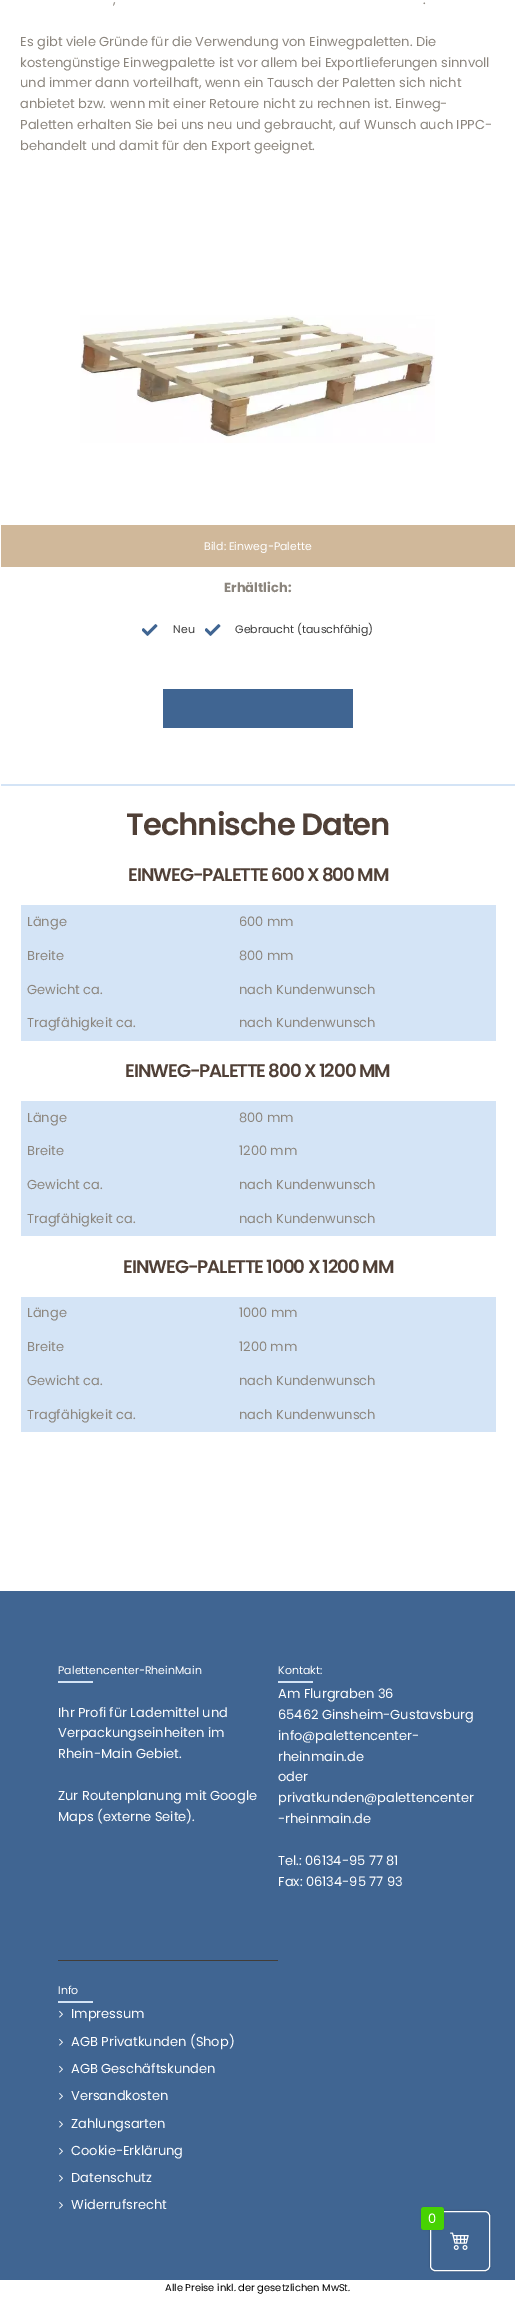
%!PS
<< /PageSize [515 2301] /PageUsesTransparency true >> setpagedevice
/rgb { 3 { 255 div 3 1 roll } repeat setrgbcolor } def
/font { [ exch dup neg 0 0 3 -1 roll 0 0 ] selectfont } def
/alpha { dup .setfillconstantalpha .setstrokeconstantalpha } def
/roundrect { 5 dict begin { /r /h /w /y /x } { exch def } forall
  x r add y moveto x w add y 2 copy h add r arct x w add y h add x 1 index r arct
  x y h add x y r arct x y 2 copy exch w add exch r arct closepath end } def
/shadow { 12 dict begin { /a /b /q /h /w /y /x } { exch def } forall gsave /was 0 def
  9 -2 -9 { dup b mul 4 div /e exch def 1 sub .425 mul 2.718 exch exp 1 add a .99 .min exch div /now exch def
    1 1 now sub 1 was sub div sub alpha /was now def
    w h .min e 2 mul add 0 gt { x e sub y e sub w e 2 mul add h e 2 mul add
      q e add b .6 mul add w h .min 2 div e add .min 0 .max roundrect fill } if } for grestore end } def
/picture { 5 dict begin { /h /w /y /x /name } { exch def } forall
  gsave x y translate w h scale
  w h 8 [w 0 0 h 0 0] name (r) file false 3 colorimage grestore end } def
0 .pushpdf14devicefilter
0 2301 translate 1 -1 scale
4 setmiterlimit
255 255 255 rgb
0 0 515 2301 rectfill
(img/1.rgb) 80 315 355 128 picture
208 184 154 rgb
1 525 514 42 rectfill
(img/2.rgb) 142 624 16 12 picture
(img/2.rgb) 205 624 16 12 picture
[
  [163 689 190 39 64 101 146]
  [1 784 514 2 212 228 246]
  [21 905 475 34 212 228 246]
  [21 939 475 34 212 228 246]
  [21 973 475 34 212 228 246]
  [21 1007 475 34 212 228 246]
  [21 1101 475 34 212 228 246]
  [21 1135 475 34 212 228 246]
  [21 1169 475 34 212 228 246]
  [21 1203 475 33 212 228 246]
  [21 1297 475 34 212 228 246]
  [21 1331 475 33 212 228 246]
  [21 1364 475 34 212 228 246]
  [21 1398 475 34 212 228 246]
  [0 1591 515 689 64 101 146]
  [58 1681 35 2 212 228 246]
  [278 1681 35 2 212 228 246]
  [58 1960 220 1 66 61 56]
  [58 2001 35 2 212 228 246]
] { aload pop rgb rectfill } forall
(img/3.rgb) 59 2010 4 8 picture
(img/3.rgb) 59 2038 4 8 picture
(img/3.rgb) 59 2065 4 8 picture
(img/3.rgb) 59 2092 4 8 picture
(img/3.rgb) 59 2120 4 8 picture
(img/3.rgb) 59 2147 4 8 picture
(img/3.rgb) 59 2174 4 8 picture
(img/3.rgb) 59 2201 4 8 picture
0 0 0 rgb
430 2211 60 60 5 1 0.3 shadow
64 101 146 rgb
430.5 2211.5 59 59 4.5 roundrect gsave fill grestore
255 255 255 rgb
stroke
0 0 0 rgb
421 2207 23 23 3 1 0.1 shadow
71 210 2 rgb
421 2207 23 23 3 roundrect fill
(img/4.rgb) 450 2232 19 18 picture
/Poppins-Regular 13 font
139 133 125 rgb
[
  [(,) 113 4]
  [(.) 423 4]
  [(Es gibt viele Gründe für die Verwendung von Einwegpaletten. Die) 20 46]
  [(kostengünstige Einwegpalette ist vor allem bei Exportlieferungen sinnvoll) 20 67]
  [(und immer dann vorteilhaft, wenn ein Tausch der Paletten sich nicht) 20 87]
  [(anbietet bzw. wenn mit einer Retoure nicht zu rechnen ist. Einweg-) 20 108]
  [(Paletten erhalten Sie bei uns neu und gebraucht, auf Wunsch auch IPPC-) 20 129]
  [(behandelt und damit für den Export geeignet.) 20 150]
] { aload pop moveto show } forall
/Poppins-Regular 11 font
255 255 255 rgb
204 550 moveto (Bild: Einweg-Palette) show
/Poppins-Bold 13 font
139 133 125 rgb
224 592 moveto (Erhältlich:) show
/Poppins-Regular 11 font
58 58 58 rgb
173 633 moveto (Neu) show
235 633 moveto (Gebraucht \(tauschfähig\)) show
/Poppins-SemiBold 30.75 font
80 64 55 rgb
126 835 moveto -1.05 0 (Technische Daten) ashow
/Poppins-SemiBold 18.3 font
128 881 moveto -1.05 0 (EINWEG-PALETTE 600 X 800 MM) ashow
/Poppins-Regular 13 font
139 133 125 rgb
[
  [(Länge) 27 926]
  [(600 mm) 239 926]
  [(Breite) 27 960]
  [(800 mm) 239 960]
  [(Gewicht ca.) 27 994]
  [(nach Kundenwunsch) 239 994]
  [(Tragfähigkeit ca.) 27 1027]
  [(nach Kundenwunsch) 239 1027]
] { aload pop moveto show } forall
/Poppins-SemiBold 18.3 font
80 64 55 rgb
125 1077 moveto -1.05 0 (EINWEG-PALETTE 800 X 1200 MM) ashow
/Poppins-Regular 13 font
139 133 125 rgb
[
  [(Länge) 27 1122]
  [(800 mm) 239 1122]
  [(Breite) 27 1155]
  [(1200 mm) 239 1155]
  [(Gewicht ca.) 27 1189]
  [(nach Kundenwunsch) 239 1189]
  [(Tragfähigkeit ca.) 27 1223]
  [(nach Kundenwunsch) 239 1223]
] { aload pop moveto show } forall
/Poppins-SemiBold 18.3 font
80 64 55 rgb
123 1273 moveto -1.05 0 (EINWEG-PALETTE 1000 X 1200 MM) ashow
/Poppins-Regular 13 font
139 133 125 rgb
[
  [(Länge) 27 1317]
  [(1000 mm) 239 1317]
  [(Breite) 27 1351]
  [(1200 mm) 239 1351]
  [(Gewicht ca.) 27 1385]
  [(nach Kundenwunsch) 239 1385]
  [(Tragfähigkeit ca.) 27 1419]
  [(nach Kundenwunsch) 239 1419]
] { aload pop moveto show } forall
/Poppins-Regular 11 font
255 255 255 rgb
58 1674 moveto (Palettencenter-RheinMain) show
/Poppins-Regular 13 font
[
  [(Ihr Profi für Lademittel und) 58 1717]
  [(Verpackungseinheiten im) 58 1737]
  [(Rhein-Main Gebiet.) 58 1758]
  [(Zur Routenplanung mit Google) 58 1800]
  [(Maps \(externe Seite\).) 58 1821]
] { aload pop moveto show } forall
/Poppins-Regular 11 font
278 1674 moveto (Kontakt:) show
/Poppins-Regular 13 font
[
  [(Am Flurgraben 36) 278 1698]
  [(65462 Ginsheim-Gustavsburg) 278 1719]
  [(info@palettencenter-) 278 1740]
  [(rheinmain.de) 278 1761]
  [(oder) 278 1781]
  [(privatkunden@palettencenter) 278 1802]
  [(-rheinmain.de) 278 1823]
  [(Tel.: 06134-95 77 81) 278 1865]
  [(Fax: 06134-95 77 93) 278 1886]
] { aload pop moveto show } forall
/Poppins-Regular 11 font
58 1994 moveto (Info) show
/Poppins-Regular 13 font
[
  [(Impressum) 71 2018]
  [(AGB Privatkunden \(Shop\)) 71 2046]
  [(AGB Geschäftskunden) 71 2073]
  [(Versandkosten) 71 2100]
  [(Zahlungsarten) 71 2128]
  [(Cookie-Erklärung) 71 2155]
  [(Datenschutz) 71 2182]
  [(Widerrufsrecht) 71 2209]
  [(0) 428 2223]
] { aload pop moveto show } forall
/Poppins-Regular 9.9 font
0 0 0 rgb
165 2291 moveto (Alle Preise inkl. der gesetzlichen MwSt.) show
.poppdf14devicefilter showpage
